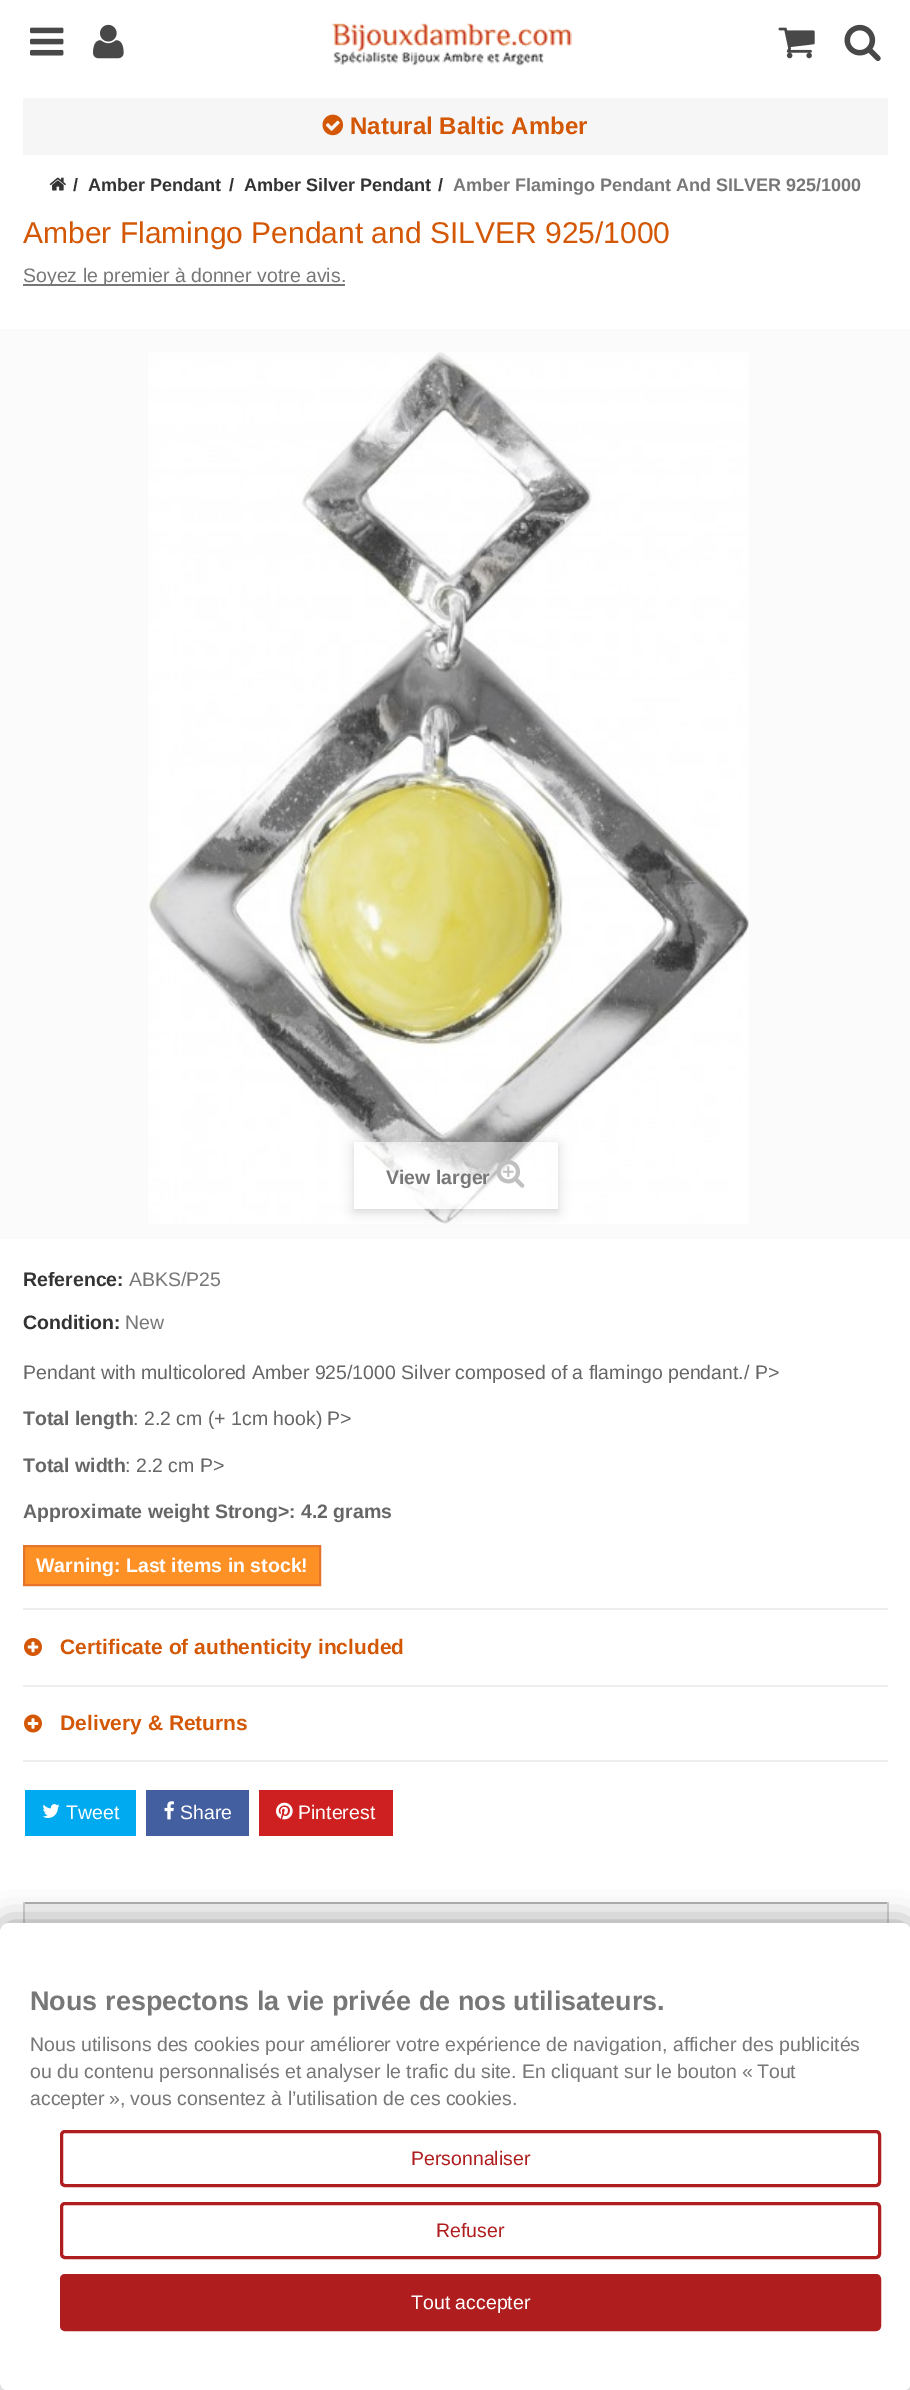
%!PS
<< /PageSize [910 2390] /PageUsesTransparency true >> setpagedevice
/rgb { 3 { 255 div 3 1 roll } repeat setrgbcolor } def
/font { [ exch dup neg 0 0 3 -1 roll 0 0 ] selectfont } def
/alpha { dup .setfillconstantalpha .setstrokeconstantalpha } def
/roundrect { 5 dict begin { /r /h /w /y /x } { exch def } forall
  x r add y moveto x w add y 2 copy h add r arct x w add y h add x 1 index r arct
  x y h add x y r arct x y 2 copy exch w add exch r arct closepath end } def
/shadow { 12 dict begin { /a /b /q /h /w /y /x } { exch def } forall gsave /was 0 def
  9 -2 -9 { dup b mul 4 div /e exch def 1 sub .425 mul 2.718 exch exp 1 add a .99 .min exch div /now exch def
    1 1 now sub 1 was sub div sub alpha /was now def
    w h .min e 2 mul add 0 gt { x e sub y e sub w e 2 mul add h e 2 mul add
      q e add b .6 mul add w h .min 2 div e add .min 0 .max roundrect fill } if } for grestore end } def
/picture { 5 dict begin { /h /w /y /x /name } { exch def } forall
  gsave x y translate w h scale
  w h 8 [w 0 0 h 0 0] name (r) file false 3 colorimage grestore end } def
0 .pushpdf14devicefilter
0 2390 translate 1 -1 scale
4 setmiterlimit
255 255 255 rgb
0 0 910 2390 rectfill
(img/1.rgb) 30 27 34 29 picture
(img/2.rgb) 93 24 31 35 picture
(img/3.rgb) 331 22 241 45 picture
(img/4.rgb) 778 27 37 32 picture
(img/5.rgb) 844 24 37 37 picture
246 246 246 rgb
23 98 865 57 rectfill
(img/6.rgb) 322 114 22 22 picture
(img/7.rgb) 49 177 17 14 picture
119 119 119 rgb
23 284 322 2 rectfill
251 251 251 rgb
0 329 910 910 rectfill
(img/8.rgb) 148 352 601 872 picture
gsave
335 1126 moveto 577 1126 lineto 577 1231 lineto 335 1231 lineto closepath 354 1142 moveto 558 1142 lineto 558 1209 lineto 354 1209 lineto closepath eoclip newpath
0 0 0 rgb
354 1145 204 67 0 6 0.16 shadow
grestore
0.5 alpha
255 255 255 rgb
362 1142 171 67 rectfill
1 alpha
(img/9.rgb) 496 1160 29 28 picture
254 145 38 rgb
24 1546 moveto 320 1546 lineto 320 1585 lineto 24 1585 lineto closepath gsave fill grestore
228 117 43 rgb
2 setlinewidth
stroke
238 238 238 rgb
23 1608 865 2 rectfill
(img/10.rgb) 24 1638 18 18 picture
23 1685 865 2 rectfill
(img/11.rgb) 24 1714 18 19 picture
23 1760 865 2 rectfill
0 170 240 rgb
25 1790 111 46 rectfill
(img/12.rgb) 42 1804 18 14 picture
67 95 159 rgb
146 1790 103 46 rectfill
(img/13.rgb) 164 1801 10 19 picture
206 31 33 rgb
259 1790 134 46 rectfill
(img/14.rgb) 276 1802 17 18 picture
[
  [25 1904 862 19 246 246 246]
  [23 1902 865 2 176 175 175]
  [887 1902 2 21 210 208 208]
  [23 1902 2 21 210 208 208]
] { aload pop rgb rectfill } forall
0 0 0 rgb
0 1923 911 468 9 15 0.4 shadow
255 255 255 rgb
0 1923 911 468 9 roundrect fill
175 29 31 rgb
3 setlinewidth
61.5 2131.5 818 54 3.5 roundrect stroke
61.5 2203.5 818 54 3.5 roundrect stroke
61.5 2275.5 818 54 3.5 roundrect gsave fill grestore
stroke
/LiberationSans-Bold 24 font
211 87 5 rgb
350 134 moveto (Natural Baltic Amber) show
/LiberationSans-Bold 18 font
51 51 51 rgb
[
  [(/) 73 191]
  [(Amber Pendant) 88 191]
  [(/) 229 191]
  [(Amber Silver Pendant) 244 191]
  [(/) 438 191]
] { aload pop moveto show } forall
119 119 119 rgb
453 191 moveto (Amber Flamingo Pendant And SILVER 925/1000) show
/LiberationSans-Regular 30 font
211 87 5 rgb
23 243 moveto (Amber Flamingo Pendant and SILVER 925/1000) show
/LiberationSans-Regular 19.5 font
119 119 119 rgb
23 282 moveto (Soyez le premier à donner votre avis.) show
/LiberationSans-Bold 19.5 font
386 1184 moveto (View larger) show
51 51 51 rgb
23 1286 moveto (Reference:) show
/LiberationSans-Regular 19.5 font
119 119 119 rgb
129 1286 moveto (ABKS/P25) show
/LiberationSans-Bold 19.5 font
51 51 51 rgb
23 1329 moveto (Condition:) show
/LiberationSans-Regular 19.5 font
119 119 119 rgb
125 1329 moveto (New) show
102 102 102 rgb
23 1379 moveto (Pendant with multicolored Amber 925/1000 Silver composed of a flamingo pendant./ P>) show
/LiberationSans-Bold 19.5 font
23 1425 moveto (Total length) show
/LiberationSans-Regular 19.5 font
133 1425 moveto (: 2.2 cm \(+ 1cm hook\) P>) show
/LiberationSans-Bold 19.5 font
23 1472 moveto (Total width) show
/LiberationSans-Regular 19.5 font
125 1472 moveto (: 2.2 cm P>) show
/LiberationSans-Bold 19.5 font
23 1518 moveto (Approximate weight Strong>: 4.2 grams) show
255 255 255 rgb
36 1572 moveto (Warning: Last items in stock!) show
/LiberationSans-Bold 21 font
211 87 5 rgb
60 1654 moveto (Certificate of authenticity included) show
60 1730 moveto (Delivery & Returns) show
/LiberationSans-Regular 19.5 font
255 255 255 rgb
[
  [(Tweet) 66 1819]
  [(Share) 180 1819]
  [(Pinterest) 298 1819]
] { aload pop moveto show } forall
/LiberationSans-Bold 27 font
119 119 119 rgb
30 2010 moveto (Nous respectons la vie privée de nos utilisateurs.) show
/LiberationSans-Regular 19.5 font
[
  [(Nous utilisons des cookies pour améliorer votre expérience de navigation, afficher des publicités) 30 2051]
  [(ou du contenu personnalisés et analyser le trafic du site. En cliquant sur le bouton « Tout) 30 2078]
  [(accepter », vous consentez à l’utilisation de ces cookies.) 30 2105]
] { aload pop moveto show } forall
175 29 31 rgb
411 2165 moveto (Personnaliser) show
436 2237 moveto (Refuser) show
255 255 255 rgb
411 2309 moveto (Tout accepter) show
.poppdf14devicefilter showpage
